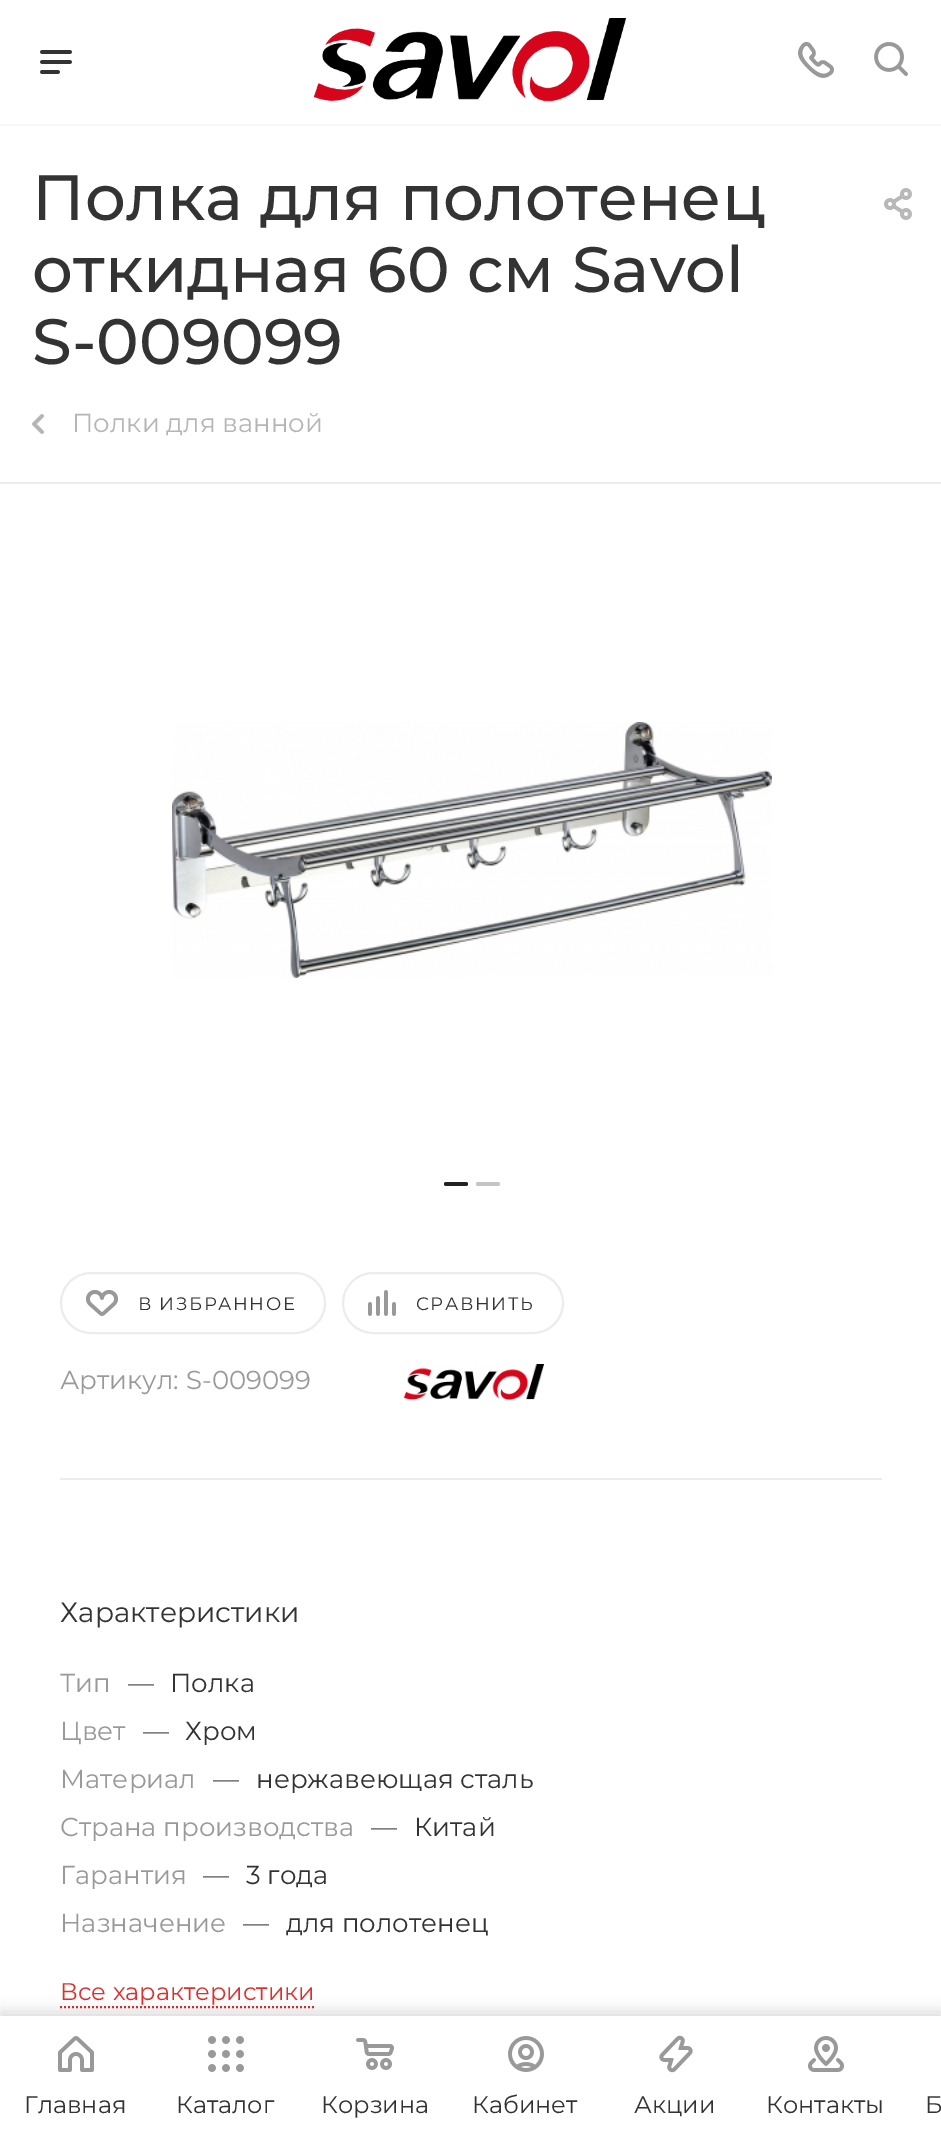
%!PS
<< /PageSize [941 2139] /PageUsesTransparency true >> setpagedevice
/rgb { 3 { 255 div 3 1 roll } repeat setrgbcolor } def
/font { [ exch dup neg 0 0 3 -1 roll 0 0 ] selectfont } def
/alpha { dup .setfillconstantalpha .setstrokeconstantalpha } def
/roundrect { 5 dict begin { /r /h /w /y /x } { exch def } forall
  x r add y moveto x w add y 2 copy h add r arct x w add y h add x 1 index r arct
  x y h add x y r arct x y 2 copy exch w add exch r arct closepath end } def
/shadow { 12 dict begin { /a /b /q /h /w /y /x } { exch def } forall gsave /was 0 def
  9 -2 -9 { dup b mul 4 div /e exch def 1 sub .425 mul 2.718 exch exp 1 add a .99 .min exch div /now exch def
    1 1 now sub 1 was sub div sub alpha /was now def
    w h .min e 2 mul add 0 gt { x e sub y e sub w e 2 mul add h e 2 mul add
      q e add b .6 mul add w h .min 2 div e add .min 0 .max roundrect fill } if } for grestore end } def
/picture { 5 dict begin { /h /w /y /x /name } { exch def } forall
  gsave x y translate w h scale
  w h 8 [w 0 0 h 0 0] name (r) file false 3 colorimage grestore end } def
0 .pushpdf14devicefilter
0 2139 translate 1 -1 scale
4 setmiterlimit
255 255 255 rgb
0 0 941 2139 rectfill
248 248 248 rgb
0 124 941 2 rectfill
(img/1.rgb) 40 50 32 24 picture
(img/2.rgb) 314 18 312 84 picture
(img/3.rgb) 798 42 36 36 picture
(img/4.rgb) 874 42 34 34 picture
(img/5.rgb) 884 188 28 32 picture
(img/6.rgb) 32 414 12 20 picture
236 236 236 rgb
0 482 941 2 rectfill
(img/7.rgb) 172 722 600 256 picture
34 34 34 rgb
444 1182 24 4 2 roundrect fill
196 196 196 rgb
476 1182 24 4 2 roundrect fill
236 236 236 rgb
60 1478 822 2 rectfill
2 setlinewidth
61 1273 264 60 30 roundrect stroke
(img/8.rgb) 86 1290 32 26 picture
343 1273 220 60 30 roundrect stroke
(img/9.rgb) 368 1290 28 26 picture
(img/10.rgb) 404 1364 140 36 picture
220 47 47 rgb
[2 2] 0 setdash
60 2007 moveto 314 2007 lineto stroke
0 0 0 rgb
0 2012 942 124 0 8 0.15 shadow
255 255 255 rgb
0 2016 941 123 rectfill
(img/11.rgb) 58 2036 36 36 picture
(img/12.rgb) 208 2036 36 36 picture
(img/13.rgb) 356 2038 39 32 picture
(img/14.rgb) 508 2036 36 36 picture
(img/15.rgb) 659 2035 34 38 picture
(img/16.rgb) 808 2036 36 36 picture
/Montserrat-Medium 64 font
51 51 51 rgb
[
  [(Полка для полотенец) 32 220]
  [(откидная 60 см Savol) 32 292]
  [(S-009099) 32 364]
] { aload pop moveto show } forall
/Montserrat-Regular 26 font
182 181 181 rgb
72 432 moveto (Полки для ванной) show
/Montserrat-Regular 18 font
51 51 51 rgb
138 1310 moveto 1.6 0 (В ИЗБРАННОЕ) ashow
416 1310 moveto 1.6 0 (СРАВНИТЬ) ashow
/Montserrat-Regular 26 font
153 153 153 rgb
60 1389 moveto (Артикул: S-009099) show
/Montserrat-Regular 28 font
51 51 51 rgb
60 1622 moveto (Характеристики) show
/Montserrat-Regular 26 font
153 153 153 rgb
60 1692 moveto (Тип) show
85 85 85 rgb
128 1692 moveto (—) show
51 51 51 rgb
170 1692 moveto (Полка) show
153 153 153 rgb
60 1740 moveto (Цвет) show
85 85 85 rgb
143 1740 moveto (—) show
51 51 51 rgb
185 1740 moveto (Хром) show
153 153 153 rgb
60 1788 moveto (Материал) show
85 85 85 rgb
213 1788 moveto (—) show
51 51 51 rgb
256 1788 moveto (нержавеющая сталь) show
153 153 153 rgb
60 1836 moveto (Страна производства) show
85 85 85 rgb
371 1836 moveto (—) show
51 51 51 rgb
414 1836 moveto (Китай) show
153 153 153 rgb
60 1884 moveto (Гарантия) show
85 85 85 rgb
203 1884 moveto (—) show
51 51 51 rgb
246 1884 moveto (3 года) show
153 153 153 rgb
60 1932 moveto (Назначение) show
85 85 85 rgb
243 1932 moveto (—) show
51 51 51 rgb
286 1932 moveto (для полотенец) show
/Montserrat-Regular 24 font
220 47 47 rgb
60 2000 moveto (Все характеристики) show
51 51 51 rgb
[
  [(Главная) 24 2113]
  [(Каталог) 176 2113]
  [(Корзина) 321 2113]
  [(Кабинет) 472 2113]
  [(Акции) 634 2113]
  [(Контакты) 766 2113]
  [(Б) 925 2113]
] { aload pop moveto show } forall
.poppdf14devicefilter showpage
